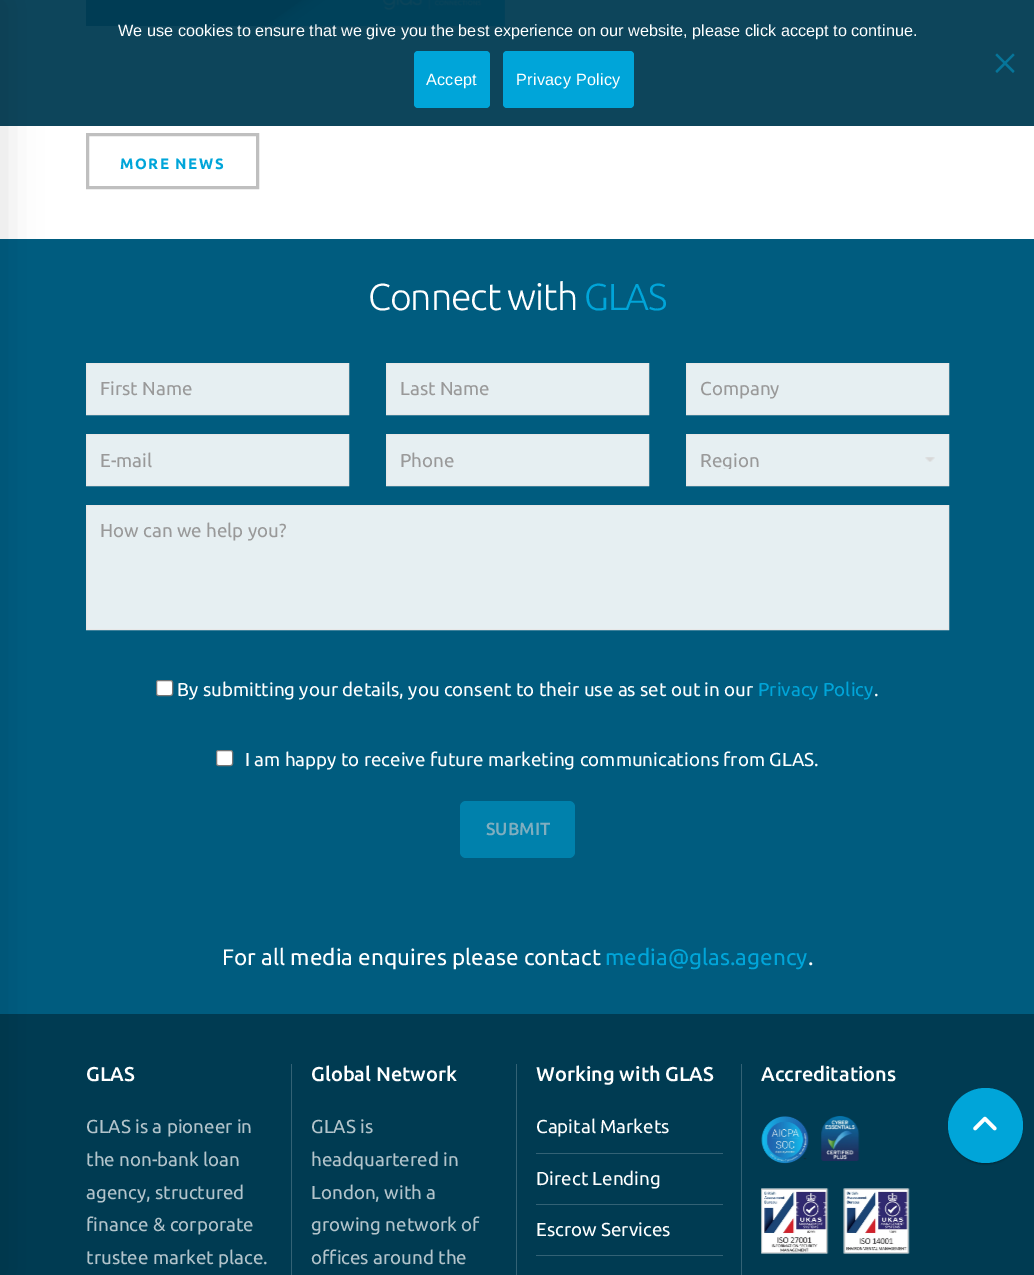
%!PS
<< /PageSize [1034 1275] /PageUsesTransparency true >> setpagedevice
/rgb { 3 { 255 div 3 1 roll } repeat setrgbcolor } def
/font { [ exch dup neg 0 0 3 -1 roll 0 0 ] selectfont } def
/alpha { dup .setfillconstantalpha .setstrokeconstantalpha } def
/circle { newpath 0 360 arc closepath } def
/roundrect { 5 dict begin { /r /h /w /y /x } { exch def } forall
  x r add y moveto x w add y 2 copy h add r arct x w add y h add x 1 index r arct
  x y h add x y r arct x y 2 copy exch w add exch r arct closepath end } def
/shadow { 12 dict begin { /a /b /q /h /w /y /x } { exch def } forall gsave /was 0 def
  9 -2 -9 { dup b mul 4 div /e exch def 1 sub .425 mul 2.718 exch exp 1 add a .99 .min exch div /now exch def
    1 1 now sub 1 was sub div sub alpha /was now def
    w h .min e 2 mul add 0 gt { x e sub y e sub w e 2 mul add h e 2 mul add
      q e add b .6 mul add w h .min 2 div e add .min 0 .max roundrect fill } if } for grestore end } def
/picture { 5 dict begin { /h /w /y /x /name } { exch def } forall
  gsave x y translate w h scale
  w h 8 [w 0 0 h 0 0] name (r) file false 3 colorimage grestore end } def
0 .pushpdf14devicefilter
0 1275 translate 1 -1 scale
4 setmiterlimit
255 255 255 rgb
0 0 1034 1275 rectfill
[
  [0 0 1034 126 13 69 91]
  [0 239 1034 775 0 92 127]
  [0 1014 1034 261 0 59 82]
] { aload pop rgb rectfill } forall
0 0 0 rgb
-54 1 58 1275 0 18 0.12 shadow
6 117 154 rgb
1013 53.5 moveto 1014.5 55 lineto 997 73 lineto 995.5 71 lineto closepath fill
995.5 55 moveto 997 53.5 lineto 1014.5 71 lineto 1013 73 lineto closepath fill
0 165 217 rgb
414 51 76 57 4 roundrect fill
503 51 131 57 4 roundrect fill
(img/1.rgb) 86 0 419 26 picture
191 191 191 rgb
3 setlinewidth
87.5 134.5 170 53 rectstroke
230 239 242 rgb
86.5 363.5 moveto 348.5 363.5 lineto 348.5 414.5 lineto 86.5 414.5 lineto closepath gsave fill grestore
232 232 232 rgb
1 setlinewidth
stroke
230 239 242 rgb
386.5 363.5 moveto 648.5 363.5 lineto 648.5 414.5 lineto 386.5 414.5 lineto closepath gsave fill grestore
232 232 232 rgb
stroke
230 239 242 rgb
686.5 363.5 moveto 948.5 363.5 lineto 948.5 414.5 lineto 686.5 414.5 lineto closepath gsave fill grestore
232 232 232 rgb
stroke
230 239 242 rgb
86.5 434.5 moveto 348.5 434.5 lineto 348.5 485.5 lineto 86.5 485.5 lineto closepath gsave fill grestore
232 232 232 rgb
stroke
230 239 242 rgb
386.5 434.5 moveto 648.5 434.5 lineto 648.5 485.5 lineto 386.5 485.5 lineto closepath gsave fill grestore
232 232 232 rgb
stroke
230 239 242 rgb
687 435 261 50 rectfill
(img/2.rgb) 925 457 10 5 picture
232 232 232 rgb
686.5 434.5 262 51 rectstroke
230 239 242 rgb
86.5 505.5 moveto 948.5 505.5 lineto 948.5 629.5 lineto 86.5 629.5 lineto closepath gsave fill grestore
232 232 232 rgb
stroke
255 255 255 rgb
156.5 680.5 16 15 2 roundrect gsave fill grestore
118 118 118 rgb
stroke
255 255 255 rgb
216.5 750.5 16 15 2 roundrect gsave fill grestore
118 118 118 rgb
stroke
0 129 172 rgb
460 801 115 57 6 roundrect fill
[
  [291 1064 1 211 51 98 117]
  [516 1064 1 211 51 98 117]
  [741 1064 1 211 51 98 117]
  [536 1153 187 1 51 98 117]
  [536 1204 187 1 51 98 117]
  [536 1255 187 1 51 98 117]
] { aload pop rgb rectfill } forall
(img/3.rgb) 761 1116 48 48 picture
(img/4.rgb) 821 1116 39 45 picture
(img/5.rgb) 761 1188 68 66 picture
(img/6.rgb) 843 1188 67 66 picture
0 0 0 rgb
950 1094 70 70 35 0.5 0.2 shadow
948 1090 75 75 37.5 1 0.14 shadow
0 165 217 rgb
985.5 1125.5 37.5 circle fill
(img/7.rgb) 973 1116 24 15 picture
/LiberationSans-Regular 16.25 font
255 255 255 rgb
118 36 moveto (We use cookies to ensure that we give you the best experience on our website, please click accept to continue.) show
426 85 moveto 0.25 0 (Accept) ashow
516 85 moveto 0.25 0 (Privacy Policy) ashow
/Ubuntu-Bold 15 font
0 165 217 rgb
120 169 moveto 1.5 0 (MORE NEWS) ashow
/Ubuntu-Light 37.5 font
255 255 255 rgb
368 310 moveto -1.1 0 (Connect with) ashow
0 165 217 rgb
584 310 moveto -1.1 0 (GLAS) ashow
/Ubuntu-Regular 18.75 font
153 153 153 rgb
[
  [(First Name) 100 395]
  [(Last Name) 400 395]
  [(Company) 700 395]
  [(E-mail) 100 467]
  [(Phone) 400 467]
] { aload pop moveto show } forall
gsave
700 450 235 19 rectclip
700 467 moveto (Region) show
grestore
100 537 moveto (How can we help you?) show
255 255 255 rgb
177 696 moveto (By submitting your details, you consent to their use as set out in our) show
0 165 217 rgb
758 696 moveto (Privacy Policy) show
255 255 255 rgb
874 696 moveto (.) show
245 766 moveto (I am happy to receive future marketing communications from GLAS.) show
/Ubuntu-Medium 17.5 font
128 174 191 rgb
486 835 moveto (SUBMIT) show
/Ubuntu-Regular 22.5 font
255 255 255 rgb
222 965 moveto (For all media enquires please contact) show
0 165 217 rgb
605 965 moveto (media@glas.agency) show
255 255 255 rgb
808 965 moveto (.) show
/Ubuntu-Medium 20 font
86 1081 moveto (GLAS) show
/Ubuntu-Regular 18.75 font
179 196 203 rgb
[
  [(GLAS is a pioneer in) 86 1133]
  [(the non-bank loan) 86 1166]
  [(agency, structured) 86 1199]
  [(finance & corporate) 86 1231]
  [(trustee market place.) 86 1264]
] { aload pop moveto show } forall
/Ubuntu-Medium 20 font
255 255 255 rgb
311 1081 moveto (Global Network) show
/Ubuntu-Regular 18.75 font
179 196 203 rgb
[
  [(GLAS is) 311 1133]
  [(headquartered in) 311 1166]
  [(London, with a) 311 1199]
  [(growing network of) 311 1231]
  [(offices around the) 311 1264]
] { aload pop moveto show } forall
/Ubuntu-Medium 20 font
255 255 255 rgb
536 1081 moveto (Working with GLAS) show
/Ubuntu-Regular 18.75 font
[
  [(Capital Markets) 536 1133]
  [(Direct Lending) 536 1185]
  [(Escrow Services) 536 1236]
] { aload pop moveto show } forall
/Ubuntu-Medium 20 font
761 1081 moveto (Accreditations) show
.poppdf14devicefilter showpage
